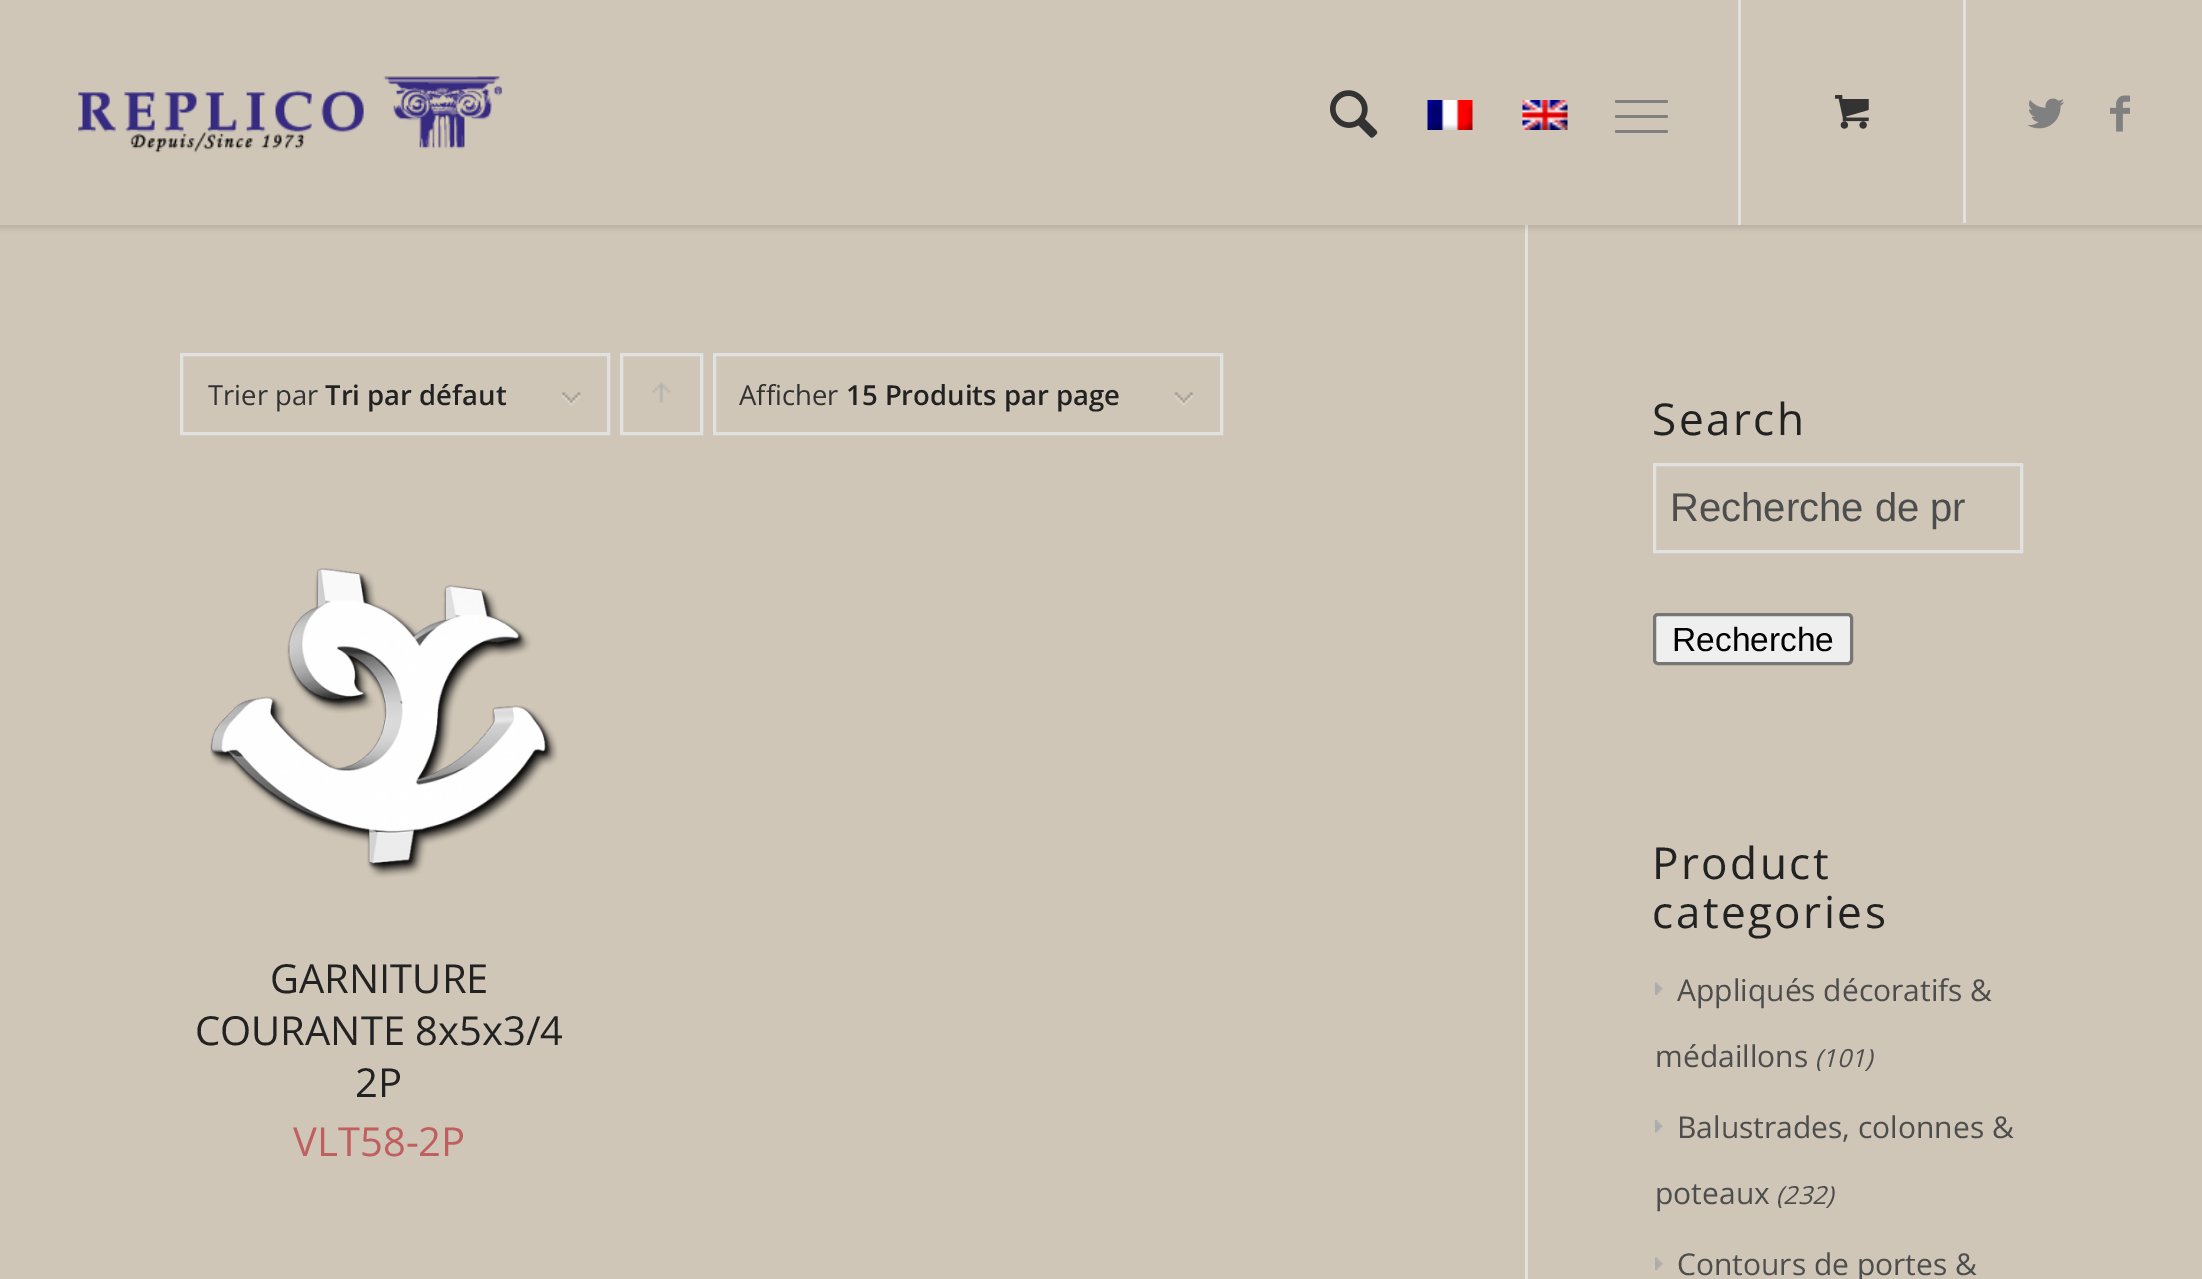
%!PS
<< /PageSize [2202 1279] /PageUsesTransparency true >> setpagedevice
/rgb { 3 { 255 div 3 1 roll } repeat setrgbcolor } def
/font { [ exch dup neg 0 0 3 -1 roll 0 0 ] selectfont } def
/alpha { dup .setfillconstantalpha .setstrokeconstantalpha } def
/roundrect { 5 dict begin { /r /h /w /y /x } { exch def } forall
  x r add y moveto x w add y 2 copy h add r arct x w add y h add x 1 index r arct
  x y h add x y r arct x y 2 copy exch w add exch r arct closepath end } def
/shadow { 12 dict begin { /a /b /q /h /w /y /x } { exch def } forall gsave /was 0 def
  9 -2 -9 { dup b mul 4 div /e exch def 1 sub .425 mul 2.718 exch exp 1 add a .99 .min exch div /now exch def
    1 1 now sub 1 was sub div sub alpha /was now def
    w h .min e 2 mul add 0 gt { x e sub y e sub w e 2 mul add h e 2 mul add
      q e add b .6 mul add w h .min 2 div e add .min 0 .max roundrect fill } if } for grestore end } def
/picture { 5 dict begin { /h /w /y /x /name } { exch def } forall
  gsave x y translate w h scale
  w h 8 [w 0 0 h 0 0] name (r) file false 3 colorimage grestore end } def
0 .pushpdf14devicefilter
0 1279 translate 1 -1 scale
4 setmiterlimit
207 198 183 rgb
0 0 2202 1279 rectfill
225 225 225 rgb
1525 220 3 1059 rectfill
0 0 0 rgb
-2 -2 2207 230 0 2.5 0.1 shadow
207 198 183 rgb
0 0 2202 225 rectfill
(img/1.rgb) 78 74 425 79 picture
225 225 225 rgb
1738 0 3 225 rectfill
(img/2.rgb) 1330 90 48 48 picture
(img/3.rgb) 1427 100 46 30 picture
(img/4.rgb) 1522 100 46 30 picture
128 128 128 rgb
1615 115 53 3 1.5 roundrect fill
1615 100 53 3 1.5 roundrect fill
1615 130 53 3 1.5 roundrect fill
225 225 225 rgb
1963 0 3 223 rectfill
(img/5.rgb) 1835 95 34 34 picture
(img/6.rgb) 2027 98 37 31 picture
(img/7.rgb) 2110 95 20 37 picture
(img/8.rgb) 562 392 19 14 picture
3 setlinewidth
181.5 354.5 427 79 rectstroke
(img/9.rgb) 652 382 19 21 picture
621.5 354.5 80 79 rectstroke
(img/10.rgb) 1174 392 20 14 picture
714.5 354.5 507 79 rectstroke
(img/11.rgb) 210 568 348 310 picture
1654.5 464.5 367 87 rectstroke
239 239 239 rgb
1654.5 614.5 197 49 3.5 roundrect gsave fill grestore
118 118 118 rgb
stroke
(img/12.rgb) 1655 982 8 13 picture
(img/13.rgb) 1655 1120 8 13 picture
(img/12.rgb) 1655 1257 8 13 picture
/OpenSans-Regular 27.5 font
51 50 51 rgb
208 405 moveto (Trier par) show
/OpenSans-SemiBold 27.5 font
34 34 34 rgb
325 405 moveto (Tri par défaut) show
/OpenSans-Regular 27.5 font
51 50 51 rgb
739 405 moveto (Afficher) show
/OpenSans-SemiBold 27.5 font
34 34 34 rgb
846 405 moveto (15 Produits par page) show
/OpenSans-Regular 40 font
[
  [(GARNITURE) 270 993]
  [(COURANTE 8x5x3/4) 195 1045]
  [(2P) 355 1097]
] { aload pop moveto show } forall
192 95 95 rgb
293 1156 moveto (VLT58-2P) show
/OpenSans-Regular 44 font
34 34 34 rgb
1652 435 moveto 2.5 0 (Search) ashow
/LiberationSans-Regular 40 font
77 77 77 rgb
1670 521 moveto (Recherche de pr) show
/LiberationSans-Regular 33.5 font
0 0 0 rgb
1672 651 moveto (Recherche) show
/OpenSans-Regular 44 font
34 34 34 rgb
1652 879 moveto 2.5 0 (Product) ashow
1652 928 moveto 2.5 0 (categories) ashow
/OpenSans-Regular 30 font
77 77 77 rgb
1677 1001 moveto (Appliqués décoratifs &) show
1655 1067 moveto (médaillons) show
/OpenSans-Italic 25 font
1815 1067 moveto (\(101\)) show
/OpenSans-Regular 30 font
1677 1138 moveto (Balustrades, colonnes &) show
1655 1204 moveto (poteaux) show
/OpenSans-Italic 25 font
1776 1204 moveto (\(232\)) show
/OpenSans-Regular 30 font
1677 1275 moveto (Contours de portes &) show
.poppdf14devicefilter showpage
